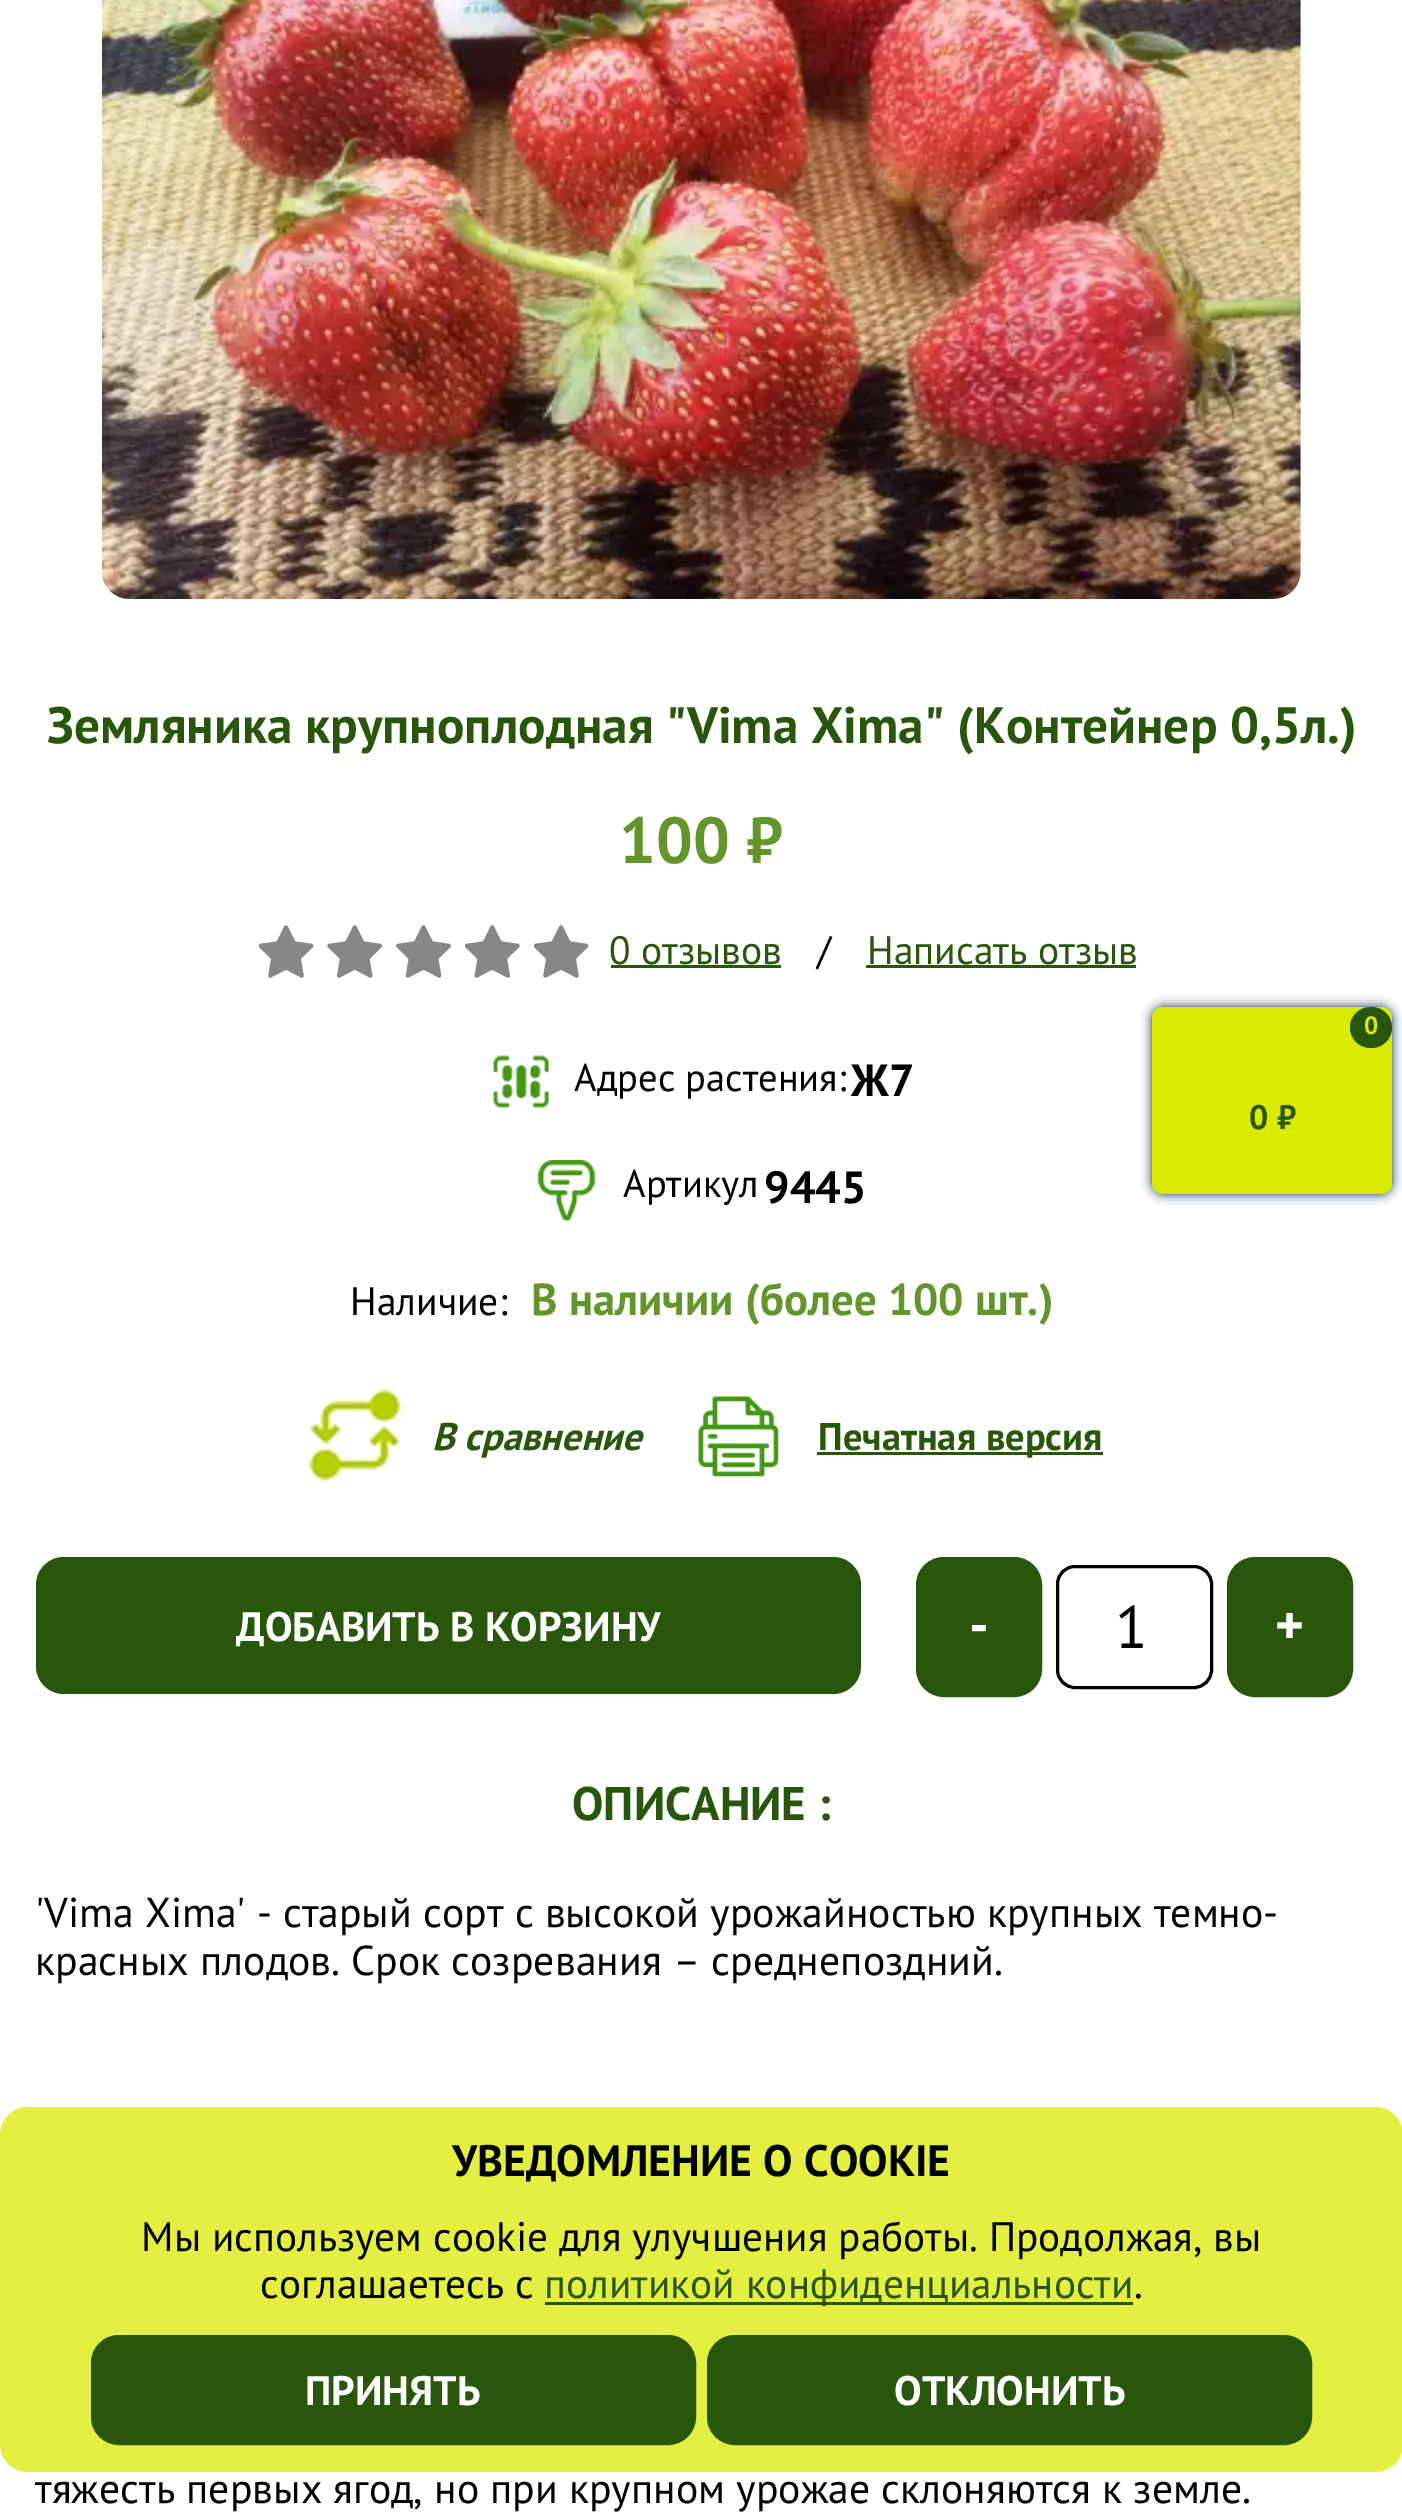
%!PS
<< /PageSize [1402 2513] /PageUsesTransparency true >> setpagedevice
/rgb { 3 { 255 div 3 1 roll } repeat setrgbcolor } def
/font { [ exch dup neg 0 0 3 -1 roll 0 0 ] selectfont } def
/alpha { dup .setfillconstantalpha .setstrokeconstantalpha } def
/roundrect { 5 dict begin { /r /h /w /y /x } { exch def } forall
  x r add y moveto x w add y 2 copy h add r arct x w add y h add x 1 index r arct
  x y h add x y r arct x y 2 copy exch w add exch r arct closepath end } def
/shadow { 12 dict begin { /a /b /q /h /w /y /x } { exch def } forall gsave /was 0 def
  9 -2 -9 { dup b mul 4 div /e exch def 1 sub .425 mul 2.718 exch exp 1 add a .99 .min exch div /now exch def
    1 1 now sub 1 was sub div sub alpha /was now def
    w h .min e 2 mul add 0 gt { x e sub y e sub w e 2 mul add h e 2 mul add
      q e add b .6 mul add w h .min 2 div e add .min 0 .max roundrect fill } if } for grestore end } def
/picture { 5 dict begin { /h /w /y /x /name } { exch def } forall
  gsave x y translate w h scale
  w h 8 [w 0 0 h 0 0] name (r) file false 3 colorimage grestore end } def
0 .pushpdf14devicefilter
0 2513 translate 1 -1 scale
4 setmiterlimit
255 255 255 rgb
0 0 1402 2513 rectfill
(img/1.rgb) 101 0 1200 599 picture
(img/2.rgb) 259 925 55 53 picture
(img/3.rgb) 327 925 55 53 picture
(img/4.rgb) 396 925 55 53 picture
(img/5.rgb) 465 925 55 53 picture
(img/2.rgb) 534 925 55 53 picture
40 86 10 rgb
611 965 170 3 rectfill
866 965 270 3 rectfill
(img/6.rgb) 493 1055 56 53 picture
(img/7.rgb) 537 1160 59 61 picture
(img/8.rgb) 307 1387 96 96 picture
(img/9.rgb) 698 1396 81 81 picture
817 1452 286 3 rectfill
36 1557 825 137 28 roundrect fill
919 1560 120 134 25 roundrect gsave fill grestore
6 setlinewidth
stroke
0 0 0 rgb
3 setlinewidth
1057.5 1566.5 154 121 17.5 roundrect stroke
40 86 10 rgb
1230 1560 120 134 25 roundrect gsave fill grestore
6 setlinewidth
stroke
0 44 83 rgb
1152 1007 240 187 11 5.5 1 shadow
217 235 1 rgb
1152 1007 240 187 11 roundrect fill
40 86 10 rgb
1350 1007 42 41 20.5 roundrect fill
0.75 alpha
217 235 1 rgb
0 2107 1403 365 28 roundrect fill
1 alpha
40 86 10 rgb
545 2302 588 3 rectfill
94 2338 599 104 25 roundrect gsave fill grestore
stroke
710 2338 599 104 25 roundrect gsave fill grestore
stroke
/PTSans-Bold 51.25 font
47 743 moveto -0.25 0 32 (Земляника крупноплодная "Vima Xima" \(Контейнер 0,5л.\)) widthshow
/PTSans-Bold 65 font
100 149 42 rgb
619 863 moveto (100 ₽) show
/PTSans-Regular 39.5 font
40 86 10 rgb
609 964 moveto (0 отзывов) show
0 0 0 rgb
817 964 moveto (/) show
40 86 10 rgb
867 964 moveto (Написать отзыв) show
/PTSans-Regular 38.5 font
0 0 0 rgb
574 1091 moveto (Адрес растения:) show
/PTSans-Bold 45 font
851 1096 moveto (Ж7) show
/PTSans-Regular 38.5 font
623 1197 moveto (Артикул) show
/PTSans-Bold 45 font
764 1203 moveto (9445) show
/PTSans-Regular 39.5 font
350 1315 moveto (Наличие:) show
/PTSans-Bold 44.75 font
100 149 42 rgb
531 1315 moveto (В наличии \(более 100 шт.\)) show
/PTSans-BoldItalic 38.5 font
40 86 10 rgb
432 1450 moveto (В сравнение) show
/PTSans-Bold 38.5 font
818 1450 moveto (Печатная версия) show
/PTSans-Bold 41.25 font
255 255 255 rgb
236 1641 moveto (ДОБАВИТЬ В КОРЗИНУ) show
/PTSans-Bold 55 font
969 1644 moveto (-) show
/PTSans-Regular 60 font
0 0 0 rgb
1115 1648 moveto (1) show
/PTSans-Bold 55 font
255 255 255 rgb
1275 1644 moveto (+) show
/PTSans-Bold 47 font
40 86 10 rgb
572 1820 moveto (ОПИСАНИЕ :) show
/PTSans-Regular 41.75 font
0 0 0 rgb
[
  [('Vima Xima' - старый сорт с высокой урожайностью крупных темно-) 35 1927]
  [(красных плодов. Срок созревания – среднепоздний.) 35 1975]
  [(тяжесть первых ягод, но при крупном урожае склоняются к земле.) 35 2503]
] { aload pop moveto show } forall
/PTSans-Bold 25 font
217 235 1 rgb
1364 1034 moveto (0) show
/PTSans-Bold 34 font
40 86 10 rgb
1249 1129 moveto (0 ₽) show
/PTSans-Bold 44 font
0 0 0 rgb
452 2176 moveto (УВЕДОМЛЕНИЕ О COOKIE) show
/PTSans-Regular 41.25 font
141 2251 moveto (Мы используем cookie для улучшения работы. Продолжая, вы) show
260 2298 moveto (соглашаетесь с) show
40 86 10 rgb
544 2298 moveto (политикой конфиденциальности) show
0 0 0 rgb
1134 2298 moveto (.) show
/PTSans-Bold 41.25 font
255 255 255 rgb
305 2405 moveto (ПРИНЯТЬ) show
894 2405 moveto (ОТКЛОНИТЬ) show
.poppdf14devicefilter showpage
